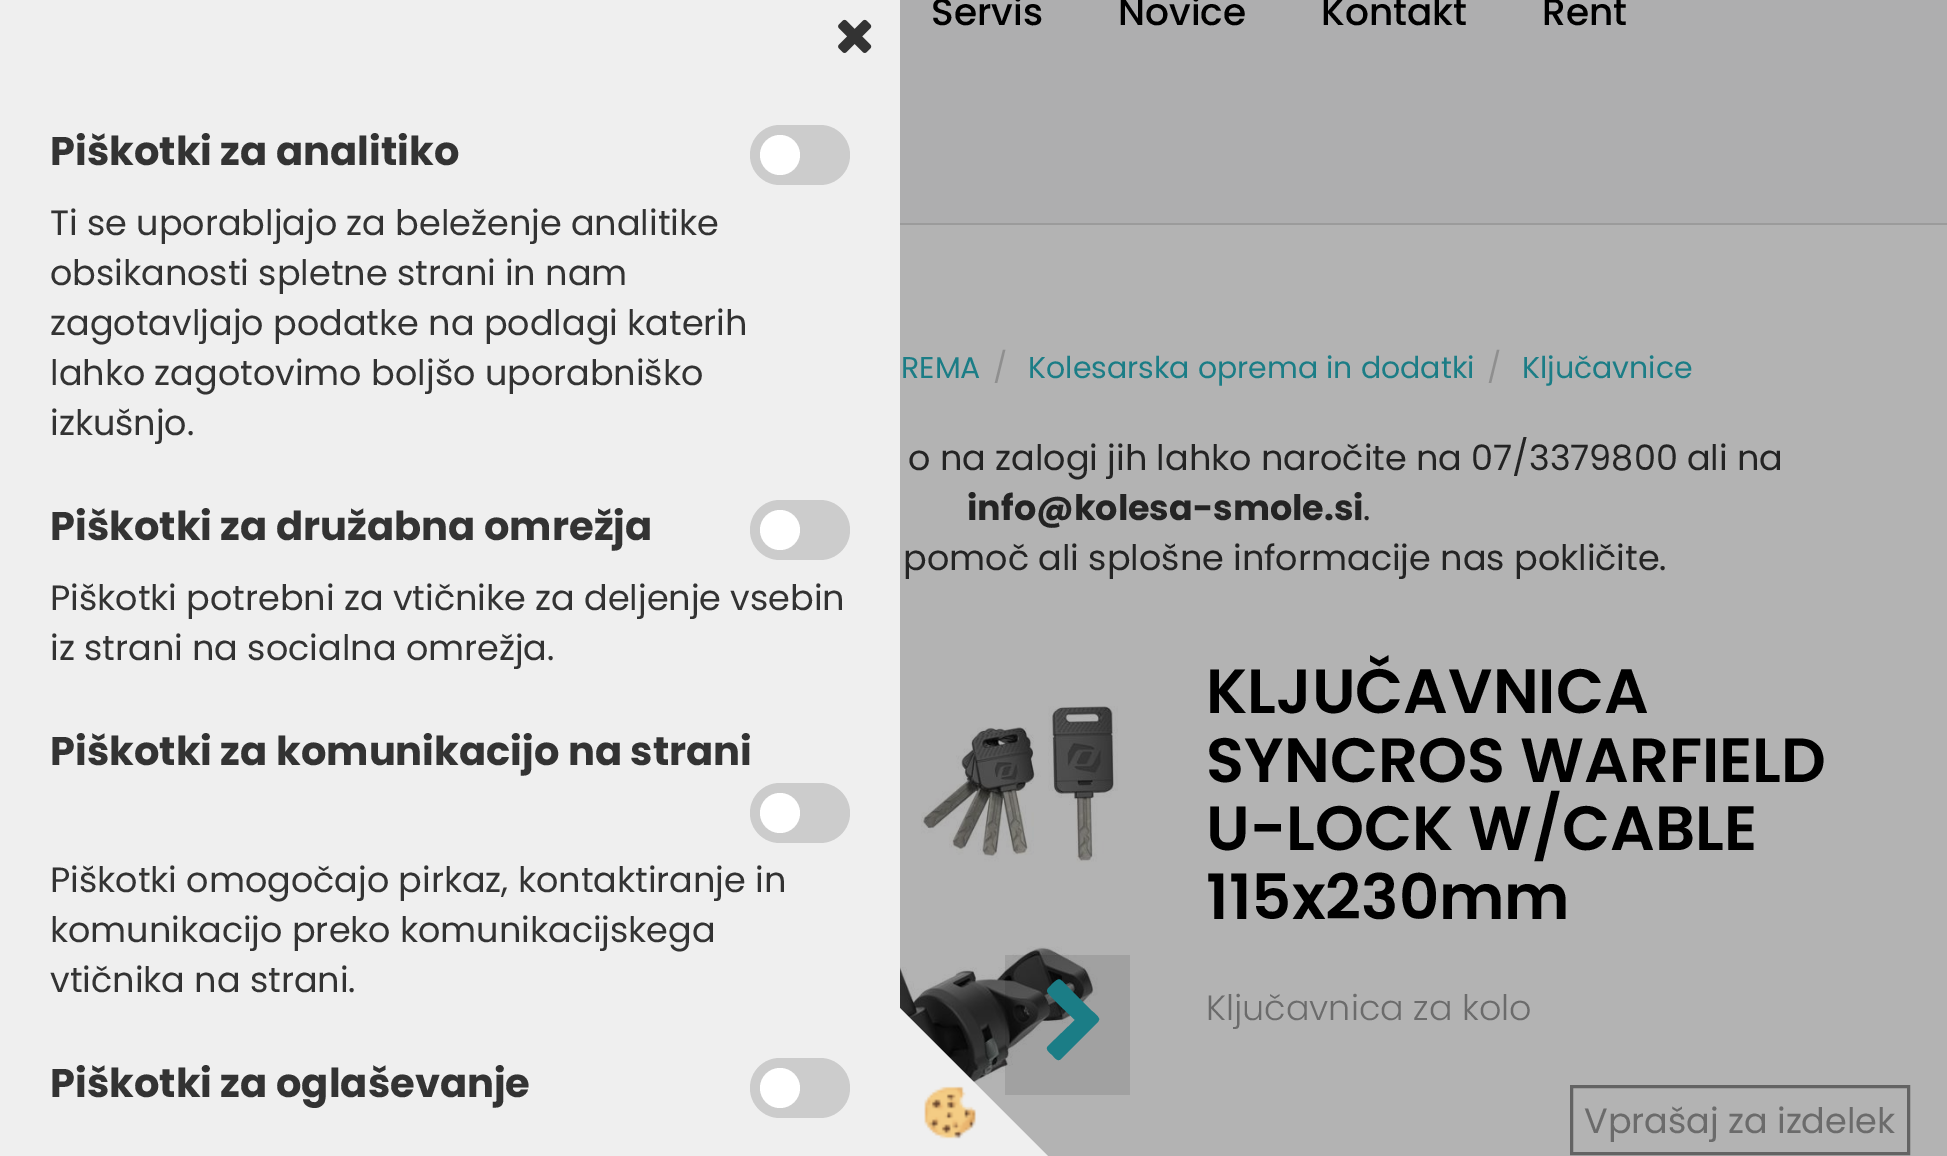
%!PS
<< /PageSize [1947 1156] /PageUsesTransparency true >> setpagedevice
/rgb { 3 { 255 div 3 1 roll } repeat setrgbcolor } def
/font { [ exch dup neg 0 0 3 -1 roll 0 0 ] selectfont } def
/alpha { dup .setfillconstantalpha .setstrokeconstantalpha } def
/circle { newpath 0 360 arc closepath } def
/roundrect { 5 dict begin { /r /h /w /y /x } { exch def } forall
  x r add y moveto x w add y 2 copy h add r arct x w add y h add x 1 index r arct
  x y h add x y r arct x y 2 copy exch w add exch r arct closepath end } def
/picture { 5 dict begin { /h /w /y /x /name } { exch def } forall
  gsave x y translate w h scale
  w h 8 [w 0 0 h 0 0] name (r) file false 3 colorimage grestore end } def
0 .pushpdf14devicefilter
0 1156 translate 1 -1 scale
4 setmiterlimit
174 174 175 rgb
0 0 1947 1156 rectfill
239 239 239 rgb
0 0 900 1156 rectfill
(img/1.rgb) 838 19 34 34 picture
204 204 204 rgb
750 125 100 60 30 roundrect fill
255 255 255 rgb
780 155 20 circle fill
204 204 204 rgb
750 500 100 60 30 roundrect fill
255 255 255 rgb
780 530 20 circle fill
204 204 204 rgb
750 783 100 60 30 roundrect fill
255 255 255 rgb
780 813 20 circle fill
204 204 204 rgb
750 1058 100 60 30 roundrect fill
255 255 255 rgb
780 1088 20 circle fill
179 179 179 rgb
900 225 1047 931 rectfill
(img/3.rgb) 900 668 218 488 picture
0.1 alpha
0 0 0 rgb
1005 955 125 140 rectfill
1 alpha
27 125 134 rgb
1098 1022 moveto 1061 1059 lineto 1057 1063 1053 1055 1051 1054 curveto 1049 1052 1045 1049 1048 1046 curveto 1075 1020 lineto 1071 1016 1047 994 1047 991 curveto 1047 988 1051 986 1052 984 curveto 1060 977 1059 978 1067 986 curveto 1092 1011 lineto 1093 1012 1100 1017 1099 1020 curveto closepath fill
239 239 239 rgb
1050 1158 moveto 900 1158 lineto 900 1008 lineto closepath fill
(img/2.rgb) 924 1086 52 53 picture
155 155 155 rgb
900 223 1047 2 rectfill
99 99 99 rgb
3 setlinewidth
1571.5 1086.5 337 67 rectstroke
/Poppins-Bold 40 font
51 51 51 rgb
50 165 moveto (Piškotki za analitiko) show
/Poppins-Regular 35 font
[
  [(Ti se uporabljajo za beleženje analitike) 50 235]
  [(obsikanosti spletne strani in nam) 50 285]
  [(zagotavljajo podatke na podlagi katerih) 50 335]
  [(lahko zagotovimo boljšo uporabniško) 50 385]
  [(izkušnjo.) 50 435]
] { aload pop moveto show } forall
/Poppins-Bold 40 font
50 540 moveto (Piškotki za družabna omrežja) show
/Poppins-Regular 35 font
50 610 moveto (Piškotki potrebni za vtičnike za deljenje vsebin) show
50 660 moveto (iz strani na socialna omrežja.) show
/Poppins-Bold 40 font
50 765 moveto (Piškotki za komunikacijo na strani) show
/Poppins-Regular 35 font
[
  [(Piškotki omogočajo pirkaz, kontaktiranje in) 50 892]
  [(komunikacijo preko komunikacijskega) 50 942]
  [(vtičnika na strani.) 50 992]
] { aload pop moveto show } forall
/Poppins-Bold 40 font
50 1097 moveto (Piškotki za oglaševanje) show
/Poppins-Medium 37.5 font
0 0 0 rgb
[
  [(Servis) 931 25]
  [(Novice) 1118 25]
  [(Kontakt) 1321 25]
  [(Rent) 1542 25]
] { aload pop moveto show } forall
/Poppins-Regular 30 font
27 125 134 rgb
901 378 moveto (REMA) show
143 143 143 rgb
993 378 moveto (/) show
27 125 134 rgb
1028 378 moveto (Kolesarska oprema in dodatki) show
143 143 143 rgb
1487 378 moveto (/) show
27 125 134 rgb
1522 378 moveto (Ključavnice) show
/Poppins-Regular 35 font
36 36 36 rgb
908 470 moveto (o na zalogi jih lahko naročite na 07/3379800 ali na) show
/Poppins-Bold 35 font
967 520 moveto (info@kolesa-smole.si) show
/Poppins-Regular 35 font
1363 520 moveto (.) show
903 570 moveto (pomoč ali splošne informacije nas pokličite.) show
/Poppins-SemiBold 62.5 font
0 0 0 rgb
[
  [(KLJUČAVNICA) 1206 713]
  [(SYNCROS WARFIELD) 1206 782]
  [(U-LOCK W/CABLE) 1206 850]
  [(115x230mm) 1206 919]
] { aload pop moveto show } forall
/Poppins-Light 35 font
107 107 107 rgb
1206 1020 moveto (Ključavnica za kolo) show
/Poppins-Regular 35 font
1584 1133 moveto (Vprašaj za izdelek) show
.poppdf14devicefilter showpage
